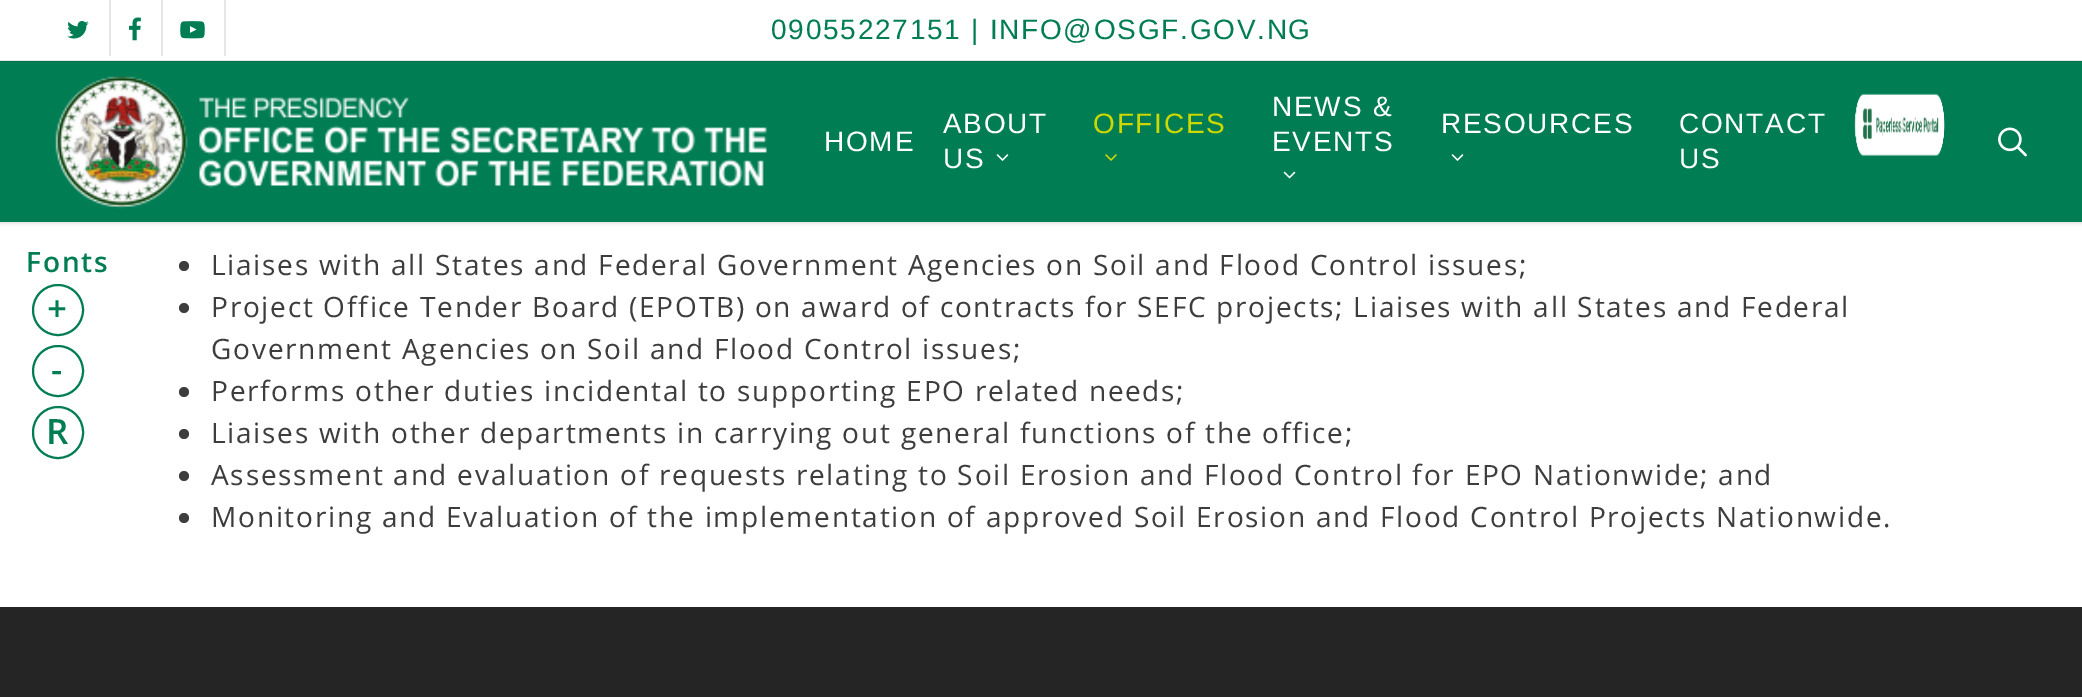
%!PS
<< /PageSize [2082 697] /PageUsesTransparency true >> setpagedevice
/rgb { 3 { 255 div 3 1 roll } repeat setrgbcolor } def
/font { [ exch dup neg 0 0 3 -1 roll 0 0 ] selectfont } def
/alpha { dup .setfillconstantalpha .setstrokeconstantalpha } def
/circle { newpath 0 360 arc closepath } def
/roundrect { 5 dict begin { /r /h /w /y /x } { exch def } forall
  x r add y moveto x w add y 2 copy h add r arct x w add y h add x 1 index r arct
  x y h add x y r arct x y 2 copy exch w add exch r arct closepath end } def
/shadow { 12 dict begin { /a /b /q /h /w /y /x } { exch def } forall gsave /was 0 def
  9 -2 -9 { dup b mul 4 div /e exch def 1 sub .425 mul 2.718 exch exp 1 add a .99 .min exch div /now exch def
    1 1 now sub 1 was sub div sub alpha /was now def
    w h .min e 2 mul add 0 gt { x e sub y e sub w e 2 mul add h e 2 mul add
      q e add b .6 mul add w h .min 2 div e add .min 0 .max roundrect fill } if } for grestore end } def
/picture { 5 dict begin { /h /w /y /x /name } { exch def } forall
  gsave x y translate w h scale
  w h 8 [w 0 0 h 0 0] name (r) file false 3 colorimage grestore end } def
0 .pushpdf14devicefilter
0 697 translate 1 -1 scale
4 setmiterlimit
255 255 255 rgb
0 0 2082 697 rectfill
0 0 0 rgb
0 0 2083 222 0 2.5 0.22 shadow
[
  [0 62 2082 160 0 125 83]
  [0 61 2082 1 0 113 75]
  [0 0 2082 60 255 255 255]
  [0 60 2082 1 230 230 230]
] { aload pop rgb rectfill } forall
(img/1.rgb) 67 21 22 18 picture
109 0 2 56 rectfill
(img/2.rgb) 129 17 12 24 picture
224 0 2 56 rectfill
161 0 2 56 rectfill
(img/3.rgb) 180 21 25 18 picture
(img/4.rgb) 55 76 712 133 picture
(img/5.rgb) 996 154 13 7 picture
(img/6.rgb) 1105 154 12 7 picture
(img/7.rgb) 1283 171 13 8 picture
(img/5.rgb) 1451 154 13 7 picture
(img/8.rgb) 1854 93 91 63 picture
(img/9.rgb) 1998 127 29 30 picture
0 125 83 rgb
2 setlinewidth
58 310 25 circle stroke
58 371 25 circle stroke
33 407 50 51 25 roundrect stroke
61 61 61 rgb
184 266 5 circle fill
184 308 5 circle fill
184 392 5 circle fill
184 434 5 circle fill
184 476 5 circle fill
184 518 5 circle fill
37 37 37 rgb
0 607 2082 90 rectfill
/LiberationSans-Regular 28 font
0 125 83 rgb
771 39 moveto 1.75 0 (09055227151 | INFO@OSGF.GOV.NG) ashow
255 255 255 rgb
824 151 moveto 1.75 0 (HOME) ashow
943 133 moveto 1.75 0 (ABOUT) ashow
943 168 moveto 1.75 0 (US) ashow
205 216 0 rgb
1093 133 moveto 1.75 0 (OFFICES) ashow
255 255 255 rgb
1272 116 moveto 1.75 0 (NEWS &) ashow
1272 151 moveto 1.75 0 (EVENTS) ashow
1441 133 moveto 1.75 0 (RESOURCES) ashow
1679 133 moveto 1.75 0 (CONTACT) ashow
1679 168 moveto 1.75 0 (US) ashow
/OpenSans-SemiBold 28 font
0 125 83 rgb
26 272 moveto 1.75 0 (Fonts) ashow
/OpenSans-SemiBold 35 font
47 321 moveto 1.75 0 (+) ashow
51 382 moveto 1.75 0 (-) ashow
46 444 moveto 1.75 0 (R) ashow
/OpenSans-Regular 28 font
61 61 61 rgb
211 275 moveto 1.75 0 (Liaises with all States and Federal Government Agencies on Soil and Flood Control issues;) ashow
211 317 moveto 1.75 0 (Project Office Tender Board \(EPOTB\) on award of contracts for SEFC projects; Liaises with all States and Federal) ashow
211 359 moveto 1.75 0 (Government Agencies on Soil and Flood Control issues;) ashow
211 401 moveto 1.75 0 (Performs other duties incidental to supporting EPO related needs;) ashow
211 443 moveto 1.75 0 (Liaises with other departments in carrying out general functions of the office;) ashow
211 485 moveto 1.75 0 (Assessment and evaluation of requests relating to Soil Erosion and Flood Control for EPO Nationwide; and) ashow
211 527 moveto 1.75 0 (Monitoring and Evaluation of the implementation of approved Soil Erosion and Flood Control Projects Nationwide.) ashow
.poppdf14devicefilter showpage
